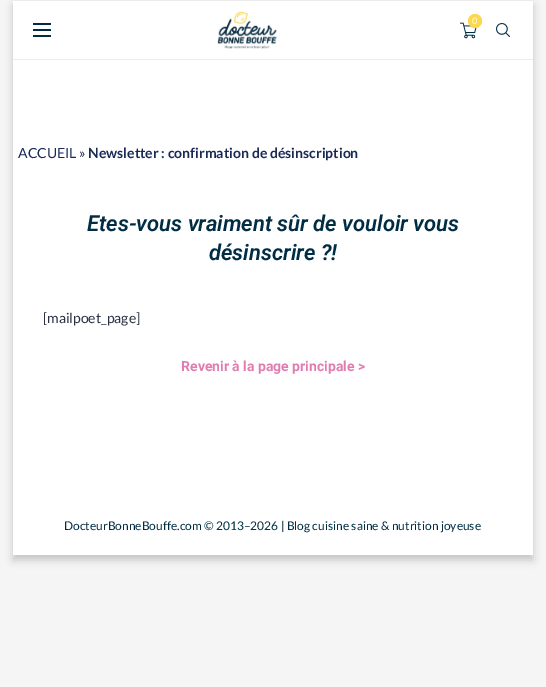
%!PS
<< /PageSize [546 687] /PageUsesTransparency true >> setpagedevice
/rgb { 3 { 255 div 3 1 roll } repeat setrgbcolor } def
/font { [ exch dup neg 0 0 3 -1 roll 0 0 ] selectfont } def
/alpha { dup .setfillconstantalpha .setstrokeconstantalpha } def
/circle { newpath 0 360 arc closepath } def
/roundrect { 5 dict begin { /r /h /w /y /x } { exch def } forall
  x r add y moveto x w add y 2 copy h add r arct x w add y h add x 1 index r arct
  x y h add x y r arct x y 2 copy exch w add exch r arct closepath end } def
/shadow { 12 dict begin { /a /b /q /h /w /y /x } { exch def } forall gsave /was 0 def
  9 -2 -9 { dup b mul 4 div /e exch def 1 sub .425 mul 2.718 exch exp 1 add a .99 .min exch div /now exch def
    1 1 now sub 1 was sub div sub alpha /was now def
    w h .min e 2 mul add 0 gt { x e sub y e sub w e 2 mul add h e 2 mul add
      q e add b .6 mul add w h .min 2 div e add .min 0 .max roundrect fill } if } for grestore end } def
/picture { 5 dict begin { /h /w /y /x /name } { exch def } forall
  gsave x y translate w h scale
  w h 8 [w 0 0 h 0 0] name (r) file false 3 colorimage grestore end } def
0 .pushpdf14devicefilter
0 687 translate 1 -1 scale
4 setmiterlimit
245 245 245 rgb
0 0 546 687 rectfill
0 0 0 rgb
13 5 520 555 0 4 0.2 shadow
[
  [13 1 520 554 255 255 255]
  [13 0 520 1 236 236 236]
  [13 59 520 1 236 236 236]
] { aload pop rgb rectfill } forall
(img/1.rgb) 217 11 60 38 picture
(img/2.rgb) 460 22 17 17 picture
251 216 76 rgb
475 21 7 circle fill
[
  [33 23 18 2 0 45 67]
  [33 29 18 2 0 45 67]
  [33 35 18 2 0 45 67]
] { aload pop rgb rectfill } forall
(img/3.rgb) 496 23 14 14 picture
/Muli-Regular 9 font
255 255 255 rgb
472 24 moveto (0) show
/Lato-Regular 14 font
26 42 87 rgb
18 158 moveto (ACCUEIL ») show
/Lato-Bold 14 font
88 158 moveto (Newsletter : confirmation de désinscription) show
/Roboto-SemiBoldItalic 22 font
0 45 67 rgb
87 231 moveto (Etes-vous vraiment sûr de vouloir vous) show
209 260 moveto (désinscrire ?!) show
/Lato-Regular 14 font
40 48 66 rgb
43 323 moveto ([mailpoet_page]) show
/Roboto-Bold 14 font
225 124 176 rgb
181 371 moveto (Revenir à la page principale >) show
/Lato-Regular 12 font
0 45 67 rgb
64 530 moveto (DocteurBonneBouffe.com © 2013–2026 | Blog cuisine saine & nutrition joyeuse) show
.poppdf14devicefilter showpage
